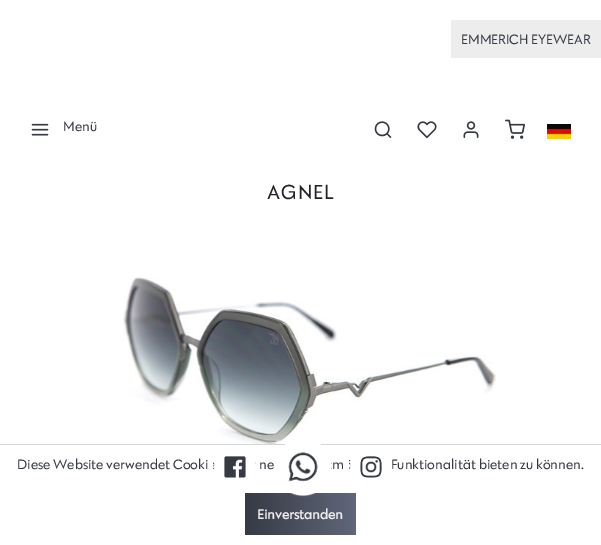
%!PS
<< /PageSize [601 545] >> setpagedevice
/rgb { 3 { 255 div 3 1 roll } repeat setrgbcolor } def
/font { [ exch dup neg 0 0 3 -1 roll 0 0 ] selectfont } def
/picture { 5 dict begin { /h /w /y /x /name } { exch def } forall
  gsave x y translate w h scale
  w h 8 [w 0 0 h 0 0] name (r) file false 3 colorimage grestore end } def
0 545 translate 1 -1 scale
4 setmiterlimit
255 255 255 rgb
0 0 601 545 rectfill
(img/1.rgb) 31 123 18 13 picture
(img/2.rgb) 374 121 18 17 picture
(img/3.rgb) 417 121 20 18 picture
(img/4.rgb) 463 121 16 17 picture
(img/5.rgb) 505 119 20 20 picture
(img/6.rgb) 547 124 24 15 picture
237 237 237 rgb
451 20 150 38 rectfill
(img/7.rgb) 123 277 373 167 picture
(img/8.rgb) 213 456 43 22 picture
213 213 213 rgb
0 444 601 1 rectfill
gsave 245 493 moveto 356 493 lineto 356 535 lineto 245 535 lineto closepath clip newpath
<< /ShadingType 2 /ColorSpace /DeviceRGB /Coords [245 514 467 514] /Extend [true true] /Function << /FunctionType 3 /Domain [0 1] /Functions [<< /FunctionType 2 /Domain [0 1] /C0 [0.212 0.227 0.267] /C1 [0.38 0.408 0.482] /N 1 >> << /FunctionType 2 /Domain [0 1] /C0 [0.38 0.408 0.482] /C1 [0.212 0.227 0.267] /N 1 >>] /Bounds [0.51] /Encode [0 1 0 1] >> >> shfill grestore
(img/9.rgb) 275 444 57 53 picture
/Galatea-Regular 14 font
54 58 68 rgb
63 131 moveto (Menü) show
461 44 moveto (EMMERICH EYEWEAR) show
/Galatea-Regular 21 font
33 35 40 rgb
267 199 moveto 1 0 (AGNEL) ashow
/Galatea-Regular 14 font
54 58 68 rgb
[
  [(Diese Website verwendet Cooki) 17 469]
  [(ne) 259 469]
  [(m) 332 469]
  [(Funktionalität bieten zu können.) 391 469]
] { aload pop moveto show } forall
(img/10.rgb) 349 456 44 22 picture
/Galatea-Bold 14 font
237 237 237 rgb
257 519 moveto (Einverstanden) show
showpage
